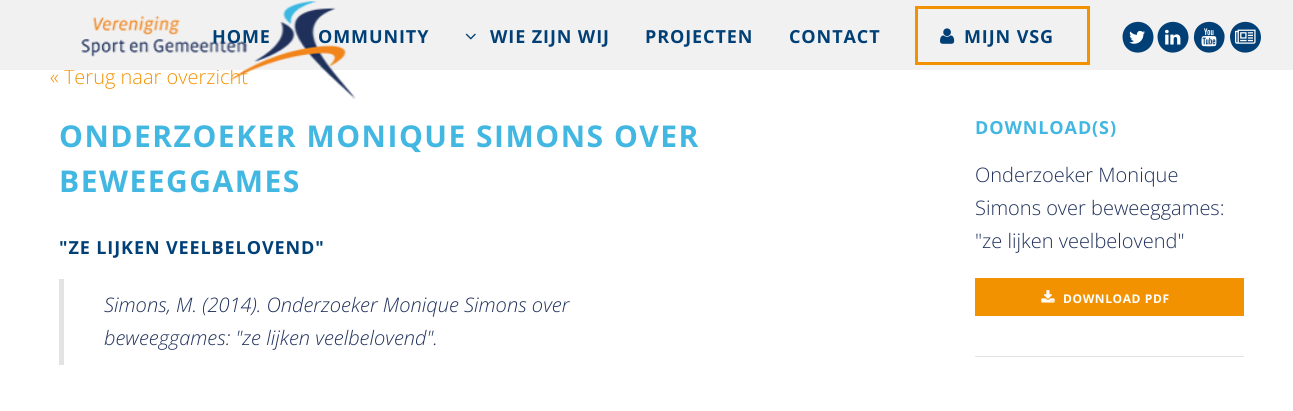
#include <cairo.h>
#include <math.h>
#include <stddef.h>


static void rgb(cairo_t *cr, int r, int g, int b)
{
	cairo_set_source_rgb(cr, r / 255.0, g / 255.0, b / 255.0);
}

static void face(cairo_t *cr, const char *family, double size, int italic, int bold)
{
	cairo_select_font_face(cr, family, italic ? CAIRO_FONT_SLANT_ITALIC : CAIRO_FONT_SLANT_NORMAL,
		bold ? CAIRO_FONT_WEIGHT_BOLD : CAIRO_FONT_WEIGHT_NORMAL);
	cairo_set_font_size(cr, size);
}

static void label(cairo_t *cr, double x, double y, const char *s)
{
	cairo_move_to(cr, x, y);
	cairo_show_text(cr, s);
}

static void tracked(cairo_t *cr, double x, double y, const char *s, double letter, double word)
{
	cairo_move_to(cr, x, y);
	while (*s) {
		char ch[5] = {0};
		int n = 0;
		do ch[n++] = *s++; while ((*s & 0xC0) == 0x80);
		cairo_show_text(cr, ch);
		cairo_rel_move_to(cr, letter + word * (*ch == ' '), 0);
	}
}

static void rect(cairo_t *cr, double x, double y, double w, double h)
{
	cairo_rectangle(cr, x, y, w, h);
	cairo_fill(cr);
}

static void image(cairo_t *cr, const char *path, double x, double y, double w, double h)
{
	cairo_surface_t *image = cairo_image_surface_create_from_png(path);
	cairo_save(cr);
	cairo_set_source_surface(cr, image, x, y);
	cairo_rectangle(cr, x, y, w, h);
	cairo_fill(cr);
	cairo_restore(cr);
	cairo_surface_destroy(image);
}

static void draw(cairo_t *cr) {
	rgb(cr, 255, 255, 255);
	cairo_paint(cr);
	face(cr, "Open Sans Light", 20, 0, 0);
	rgb(cr, 242, 146, 0);
	label(cr, 50, 84, "« Terug naar overzicht");
	rgb(cr, 241, 241, 241);
	rect(cr, 0, 0, 1293, 70);
	image(cr, "image0.png", 81, 1, 275, 98);
	face(cr, "Open Sans", 18, 0, 1);
	rgb(cr, 1, 64, 118);
	tracked(cr, 212, 43, "HOME", 0.9, 0);
	tracked(cr, 318, 43, "OMMUNITY", 0.9, 0);
	image(cr, "image1.png", 465, 33, 11, 7);
	tracked(cr, 490, 43, "WIE ZIJN WIJ", 0.9, 0);
	tracked(cr, 645, 43, "PROJECTEN", 0.9, 0);
	tracked(cr, 789, 43, "CONTACT", 0.9, 0);
	cairo_rectangle(cr, 916.5, 7.5, 172, 56);
	rgb(cr, 242, 146, 0);
	cairo_set_line_width(cr, 3);
	cairo_stroke(cr);
	image(cr, "image2.png", 940, 28, 15, 16);
	rgb(cr, 1, 64, 118);
	tracked(cr, 964, 43, "MIJN VSG", 0.9, 0);
	cairo_new_path(cr);
	cairo_move_to(cr, 1151.5, 29.5);
	cairo_curve_to(cr, 1153, 32, 1153.5, 35, 1153.5, 38);
	cairo_curve_to(cr, 1152.5, 53.5, 1132, 58, 1124.5, 45);
	cairo_curve_to(cr, 1123, 42, 1122.5, 39, 1122.5, 36);
	cairo_curve_to(cr, 1123.5, 21, 1143.5, 16.5, 1151.5, 29.5);
	cairo_close_path(cr);
	cairo_fill(cr);
	image(cr, "image3.png", 1129, 30, 16, 14);
	cairo_new_path(cr);
	cairo_move_to(cr, 1186.5, 29.5);
	cairo_curve_to(cr, 1188, 32, 1188.5, 35, 1188.5, 38);
	cairo_curve_to(cr, 1187.5, 53.5, 1167, 58, 1159.5, 45);
	cairo_curve_to(cr, 1158, 42, 1157.5, 39, 1157.5, 36);
	cairo_curve_to(cr, 1158.5, 21, 1178.5, 16.5, 1186.5, 29.5);
	cairo_close_path(cr);
	cairo_fill(cr);
	image(cr, "image4.png", 1165, 29, 16, 16);
	cairo_new_path(cr);
	cairo_move_to(cr, 1222.5, 29.5);
	cairo_curve_to(cr, 1224, 32, 1225, 35, 1224.5, 38);
	cairo_curve_to(cr, 1223.5, 53.5, 1203.5, 58, 1196, 45);
	cairo_curve_to(cr, 1194.5, 42, 1193.5, 39, 1194, 36);
	cairo_curve_to(cr, 1194.5, 21, 1215, 16.5, 1222.5, 29.5);
	cairo_close_path(cr);
	cairo_fill(cr);
	image(cr, "image5.png", 1201, 28, 16, 19);
	cairo_new_path(cr);
	cairo_move_to(cr, 1259, 29.5);
	cairo_curve_to(cr, 1260.5, 32, 1261, 35, 1261, 38);
	cairo_curve_to(cr, 1260, 53.5, 1239.5, 58, 1232, 45);
	cairo_curve_to(cr, 1230.5, 42, 1230, 39, 1230, 36);
	cairo_curve_to(cr, 1231, 21, 1251, 16.5, 1259, 29.5);
	cairo_close_path(cr);
	cairo_fill(cr);
	image(cr, "image6.png", 1235, 29, 21, 15);
	face(cr, "Open Sans", 30, 0, 1);
	rgb(cr, 66, 183, 226);
	tracked(cr, 59, 147, "ONDERZOEKER MONIQUE SIMONS OVER", 1.5, 0);
	tracked(cr, 59, 192, "BEWEEGGAMES", 1.5, 0);
	face(cr, "Open Sans", 18, 0, 1);
	rgb(cr, 1, 64, 118);
	tracked(cr, 59, 254, "\"ZE LIJKEN VEELBELOVEND\"", 0.9, 0);
	rgb(cr, 227, 227, 227);
	rect(cr, 59, 279, 5, 86);
	face(cr, "Open Sans Light", 20, 1, 0);
	rgb(cr, 32, 49, 92);
	label(cr, 104, 312, "Simons, M. (2014). Onderzoeker Monique Simons over");
	label(cr, 104, 345, "beweeggames: \"ze lijken veelbelovend\".");
	face(cr, "Open Sans", 18, 0, 1);
	rgb(cr, 66, 183, 226);
	tracked(cr, 975, 134, "DOWNLOAD(S)", 0.9, 0);
	face(cr, "Open Sans Light", 20, 0, 0);
	rgb(cr, 32, 49, 92);
	label(cr, 975, 182, "Onderzoeker Monique");
	label(cr, 975, 215, "Simons over beweeggames:");
	label(cr, 975, 248, "\"ze lijken veelbelovend\"");
	rgb(cr, 242, 146, 0);
	rect(cr, 975, 278, 269, 38);
	image(cr, "image7.png", 1041, 290, 14, 13);
	face(cr, "Open Sans", 12, 0, 1);
	rgb(cr, 255, 255, 255);
	tracked(cr, 1063, 303, "DOWNLOAD PDF", 0.6, 0);
	rgb(cr, 227, 227, 227);
	rect(cr, 975, 356, 269, 1);
}

int main(void) {
	cairo_surface_t *surface = cairo_image_surface_create(CAIRO_FORMAT_RGB24, 1293, 411);
	cairo_t *cr = cairo_create(surface);
	cairo_font_options_t *options = cairo_font_options_create();
	cairo_font_options_set_hint_metrics(options, CAIRO_HINT_METRICS_OFF);
	cairo_font_options_set_hint_style(options, CAIRO_HINT_STYLE_NONE);
	cairo_set_font_options(cr, options);
	cairo_set_miter_limit(cr, 4);
	draw(cr);
	cairo_surface_write_to_png(surface, "render.png");
	cairo_font_options_destroy(options);
	cairo_destroy(cr);
	cairo_surface_destroy(surface);
	return 0;
}
